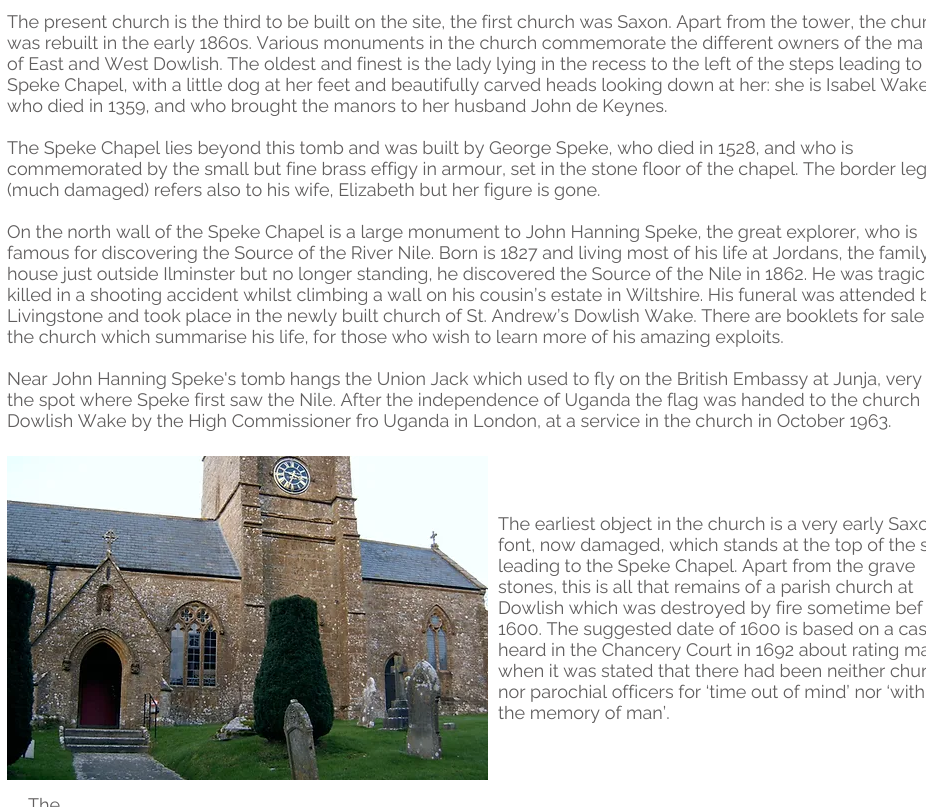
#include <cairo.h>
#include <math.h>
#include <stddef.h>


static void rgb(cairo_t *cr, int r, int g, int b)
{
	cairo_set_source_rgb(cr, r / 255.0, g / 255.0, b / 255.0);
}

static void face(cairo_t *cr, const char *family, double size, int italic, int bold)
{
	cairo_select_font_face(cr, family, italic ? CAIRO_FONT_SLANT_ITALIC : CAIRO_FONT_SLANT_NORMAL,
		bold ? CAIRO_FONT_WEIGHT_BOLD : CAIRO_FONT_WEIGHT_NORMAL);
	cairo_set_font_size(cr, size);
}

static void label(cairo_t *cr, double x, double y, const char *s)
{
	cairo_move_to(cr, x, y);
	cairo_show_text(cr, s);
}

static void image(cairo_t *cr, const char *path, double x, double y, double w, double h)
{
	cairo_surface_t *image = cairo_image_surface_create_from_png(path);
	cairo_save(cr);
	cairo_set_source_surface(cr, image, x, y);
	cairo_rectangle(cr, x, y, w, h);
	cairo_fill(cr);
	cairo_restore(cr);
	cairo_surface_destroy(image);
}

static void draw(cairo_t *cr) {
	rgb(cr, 255, 255, 255);
	cairo_paint(cr);
	face(cr, "Raleway", 18, 0, 0);
	rgb(cr, 96, 94, 94);
	label(cr, 7, 28, "The present church is the third to be built on the site, the first church was Saxon. Apart from the tower, the chur");
	label(cr, 7, 49, "was rebuilt in the early 1860s. Various monuments in the church commemorate the different owners of the ma");
	label(cr, 7, 70, "of East and West Dowlish. The oldest and finest is the lady lying in the recess to the left of the steps leading to");
	label(cr, 7, 91, "Speke Chapel, with a little dog at her feet and beautifully carved heads looking down at her: she is Isabel Wake");
	label(cr, 7, 112, "who died in 1359, and who brought the manors to her husband John de Keynes.");
	label(cr, 7, 154, "The Speke Chapel lies beyond this tomb and was built by George Speke, who died in 1528, and who is");
	label(cr, 7, 175, "commemorated by the small but fine brass effigy in armour, set in the stone floor of the chapel. The border leg");
	label(cr, 7, 196, "(much damaged) refers also to his wife, Elizabeth but her figure is gone.");
	label(cr, 7, 238, "On the north wall of the Speke Chapel is a large monument to John Hanning Speke, the great explorer, who is");
	label(cr, 7, 259, "famous for discovering the Source of the River Nile. Born is 1827 and living most of his life at Jordans, the family");
	label(cr, 7, 280, "house just outside Ilminster but no longer standing, he discovered the Source of the Nile in 1862. He was tragic");
	label(cr, 7, 301, "killed in a shooting accident whilst climbing a wall on his cousin’s estate in Wiltshire. His funeral was attended b");
	label(cr, 7, 322, "Livingstone and took place in the newly built church of St. Andrew’s Dowlish Wake. There are booklets for sale");
	label(cr, 7, 343, "the church which summarise his life, for those who wish to learn more of his amazing exploits.");
	label(cr, 7, 385, "Near John Hanning Speke's tomb hangs the Union Jack which used to fly on the British Embassy at Junja, very");
	label(cr, 7, 406, "the spot where Speke first saw the Nile. After the independence of Uganda the flag was handed to the church");
	label(cr, 7, 427, "Dowlish Wake by the High Commissioner fro Uganda in London, at a service in the church in October 1963.");
	image(cr, "image0.png", 7, 456, 481, 324);
	label(cr, 498, 530, "The earliest object in the church is a very early Saxo");
	label(cr, 498, 551, "font, now damaged, which stands at the top of the s");
	label(cr, 498, 572, "leading to the Speke Chapel. Apart from the grave");
	label(cr, 498, 593, "stones, this is all that remains of a parish church at");
	label(cr, 498, 614, "Dowlish which was destroyed by fire sometime bef");
	label(cr, 498, 635, "1600. The suggested date of 1600 is based on a cas");
	label(cr, 498, 656, "heard in the Chancery Court in 1692 about rating ma");
	label(cr, 498, 677, "when it was stated that there had been neither chur");
	label(cr, 498, 698, "nor parochial officers for ‘time out of mind’ nor ‘with");
	label(cr, 498, 719, "the memory of man’.");
	label(cr, 28, 811, "The");
}

int main(void) {
	cairo_surface_t *surface = cairo_image_surface_create(CAIRO_FORMAT_RGB24, 926, 807);
	cairo_t *cr = cairo_create(surface);
	cairo_font_options_t *options = cairo_font_options_create();
	cairo_font_options_set_hint_metrics(options, CAIRO_HINT_METRICS_OFF);
	cairo_font_options_set_hint_style(options, CAIRO_HINT_STYLE_NONE);
	cairo_set_font_options(cr, options);
	cairo_set_miter_limit(cr, 4);
	draw(cr);
	cairo_surface_write_to_png(surface, "render.png");
	cairo_font_options_destroy(options);
	cairo_destroy(cr);
	cairo_surface_destroy(surface);
	return 0;
}
